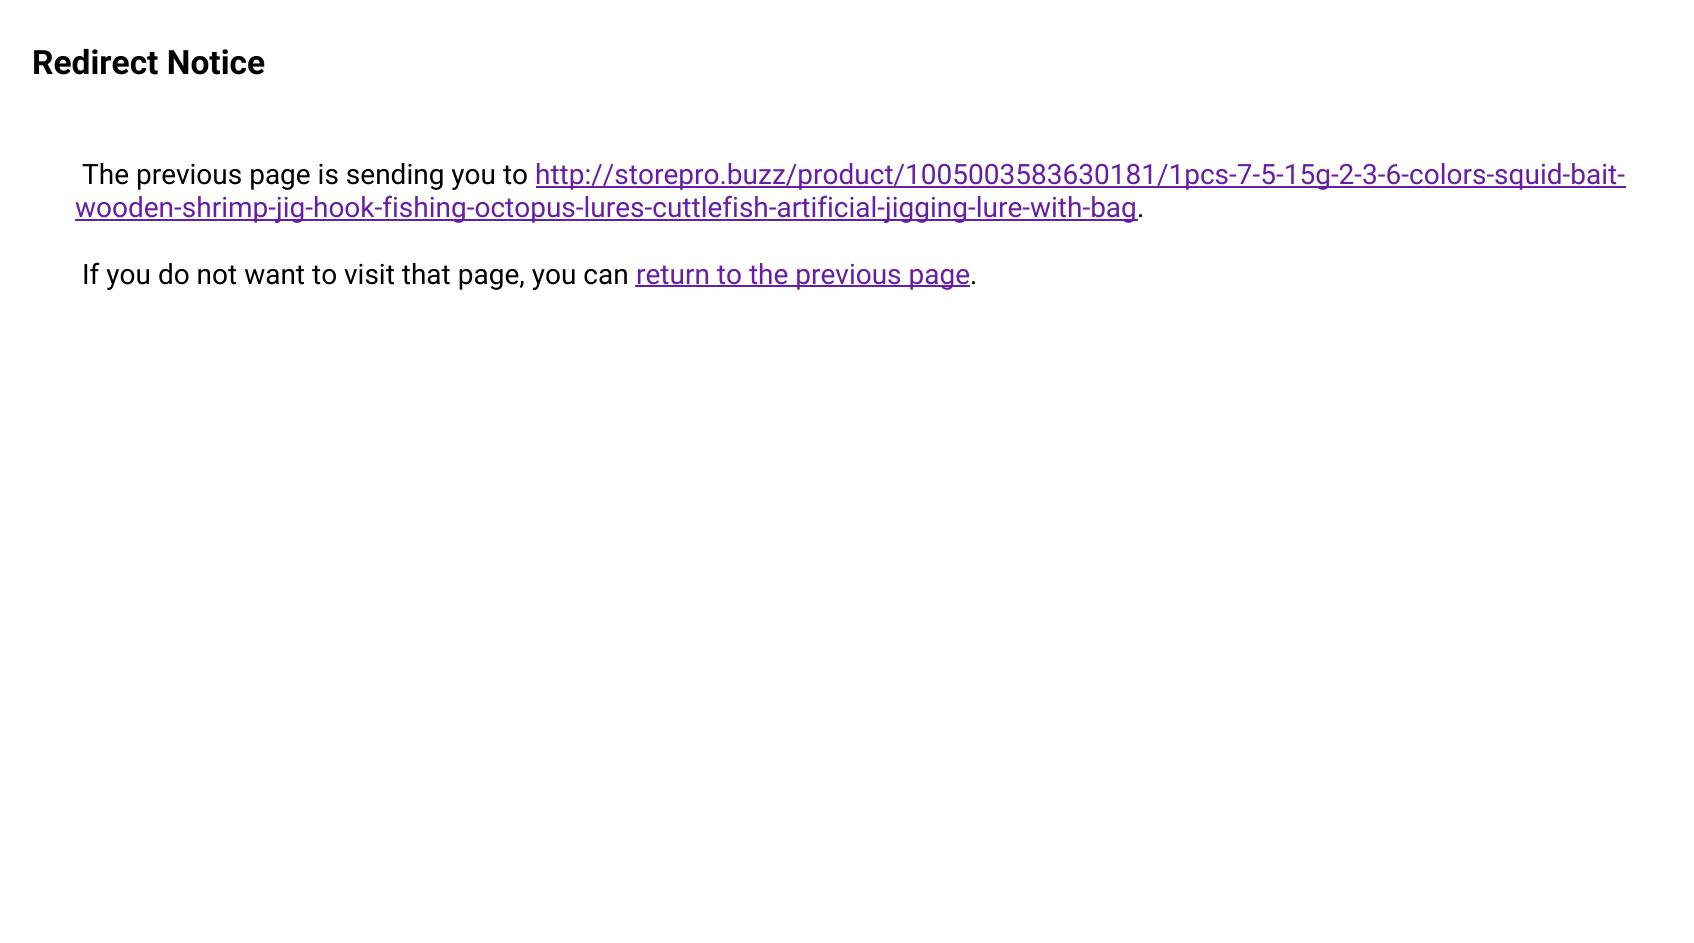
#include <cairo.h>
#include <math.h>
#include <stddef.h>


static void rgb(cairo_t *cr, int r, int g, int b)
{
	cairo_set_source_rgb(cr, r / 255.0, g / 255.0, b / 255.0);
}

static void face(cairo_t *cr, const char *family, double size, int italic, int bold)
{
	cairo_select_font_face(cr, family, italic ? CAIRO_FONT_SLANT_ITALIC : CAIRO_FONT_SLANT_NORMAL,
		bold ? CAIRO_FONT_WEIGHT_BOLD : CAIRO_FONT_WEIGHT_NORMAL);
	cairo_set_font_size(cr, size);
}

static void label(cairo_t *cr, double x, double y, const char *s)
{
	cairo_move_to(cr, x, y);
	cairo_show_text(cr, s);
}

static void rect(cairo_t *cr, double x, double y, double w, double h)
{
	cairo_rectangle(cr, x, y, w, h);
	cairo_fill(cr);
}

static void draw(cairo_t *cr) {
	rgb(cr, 255, 255, 255);
	cairo_paint(cr);
	face(cr, "Roboto", 33.5, 0, 1);
	rgb(cr, 0, 0, 0);
	label(cr, 32, 74, "Redirect Notice");
	face(cr, "Roboto", 28, 0, 0);
	label(cr, 82, 184, "The previous page is sending you to");
	rgb(cr, 104, 29, 168);
	rect(cr, 536, 186, 1090, 2);
	label(cr, 535, 184, "http://storepro.buzz/product/1005003583630181/1pcs-7-5-15g-2-3-6-colors-squid-bait-");
	rect(cr, 75, 219, 1063, 2);
	label(cr, 75, 217, "wooden-shrimp-jig-hook-fishing-octopus-lures-cuttlefish-artificial-jigging-lure-with-bag");
	rgb(cr, 0, 0, 0);
	label(cr, 1137, 217, ".");
	label(cr, 82, 284, "If you do not want to visit that page, you can");
	rgb(cr, 104, 29, 168);
	rect(cr, 635, 285, 335, 2);
	label(cr, 636, 284, "return to the previous page");
	rgb(cr, 0, 0, 0);
	label(cr, 970, 284, ".");
}

int main(void) {
	cairo_surface_t *surface = cairo_image_surface_create(CAIRO_FORMAT_RGB24, 1694, 943);
	cairo_t *cr = cairo_create(surface);
	cairo_font_options_t *options = cairo_font_options_create();
	cairo_font_options_set_hint_metrics(options, CAIRO_HINT_METRICS_OFF);
	cairo_font_options_set_hint_style(options, CAIRO_HINT_STYLE_NONE);
	cairo_set_font_options(cr, options);
	cairo_set_miter_limit(cr, 4);
	draw(cr);
	cairo_surface_write_to_png(surface, "render.png");
	cairo_font_options_destroy(options);
	cairo_destroy(cr);
	cairo_surface_destroy(surface);
	return 0;
}
